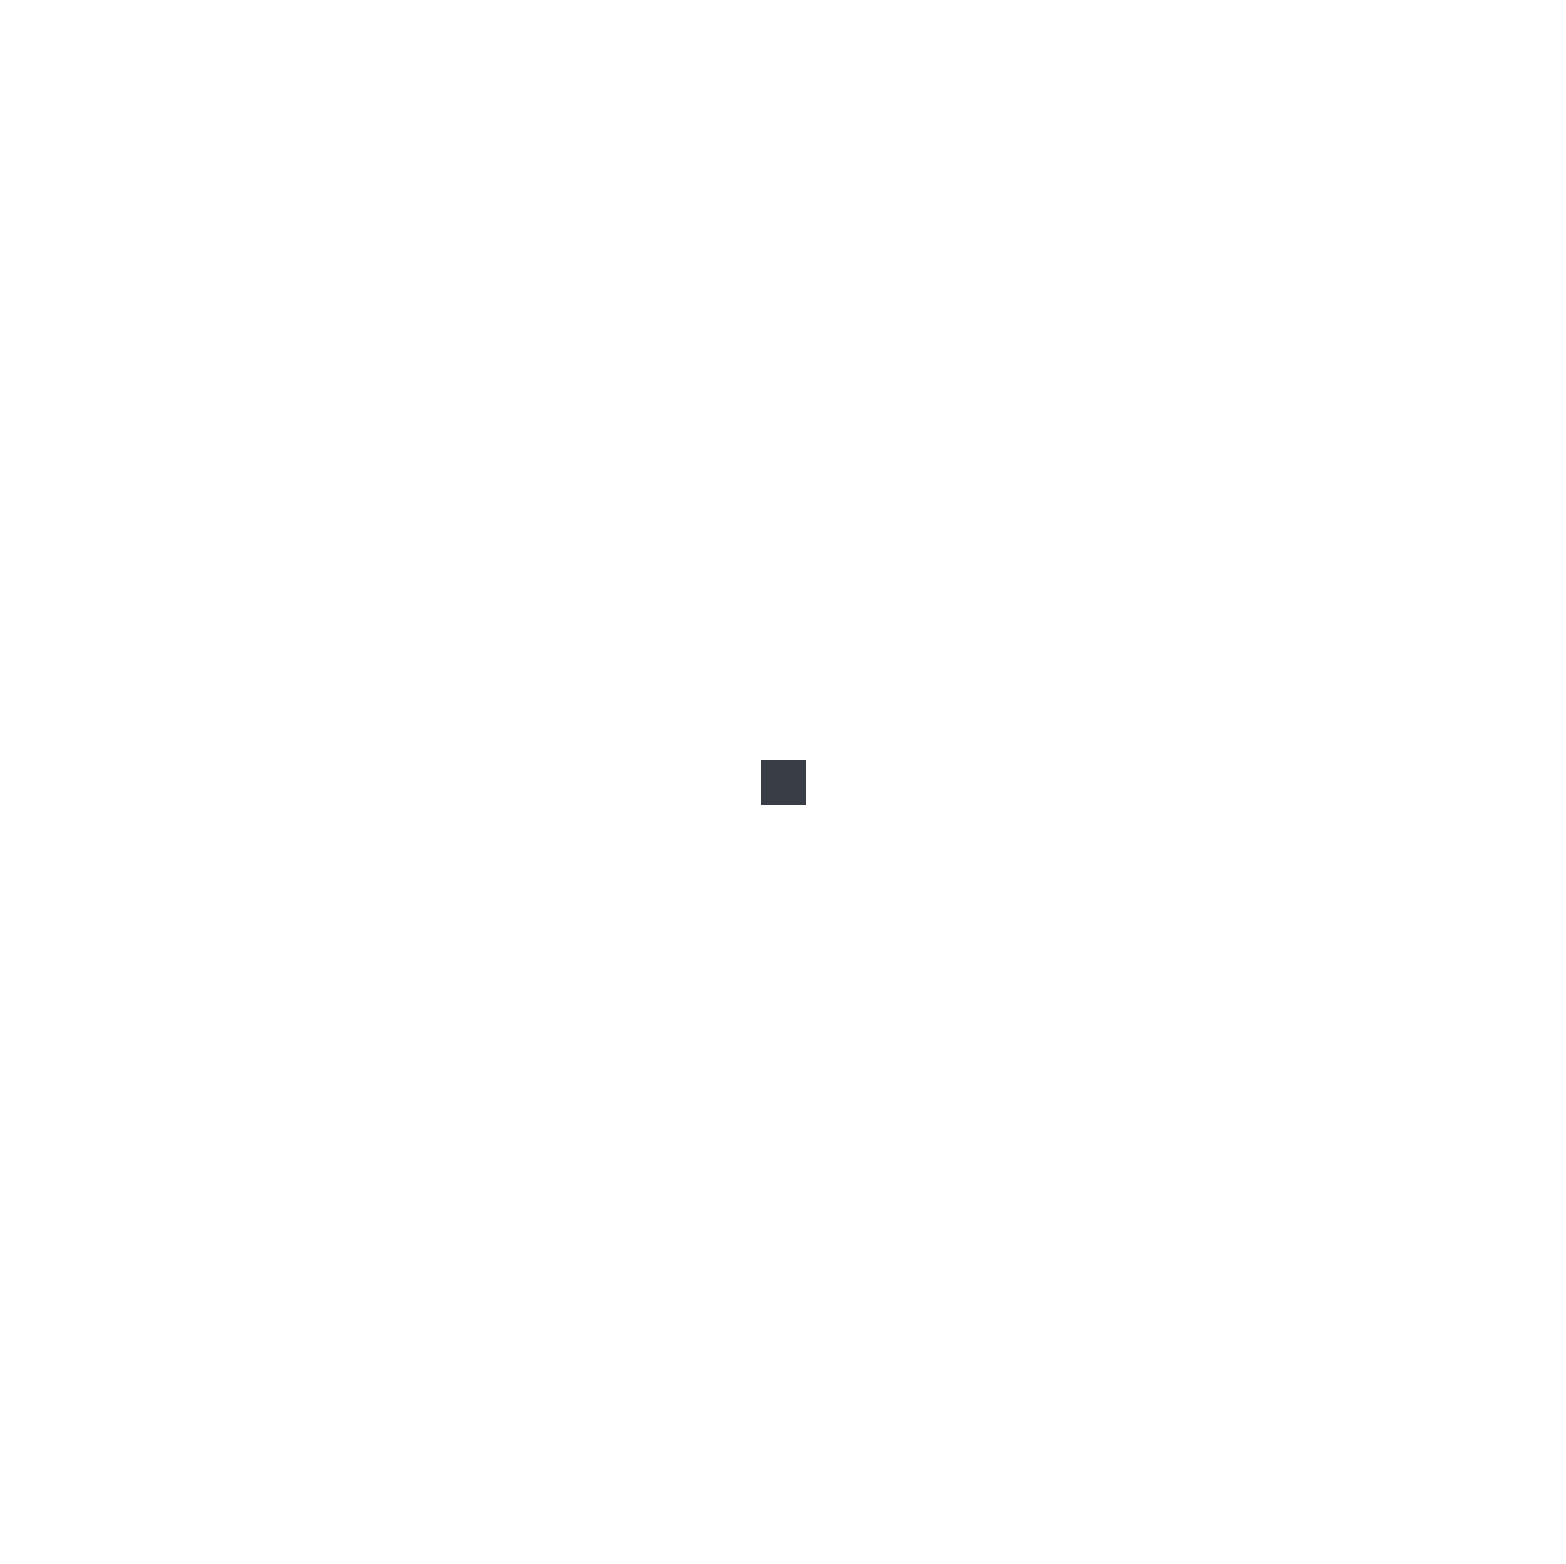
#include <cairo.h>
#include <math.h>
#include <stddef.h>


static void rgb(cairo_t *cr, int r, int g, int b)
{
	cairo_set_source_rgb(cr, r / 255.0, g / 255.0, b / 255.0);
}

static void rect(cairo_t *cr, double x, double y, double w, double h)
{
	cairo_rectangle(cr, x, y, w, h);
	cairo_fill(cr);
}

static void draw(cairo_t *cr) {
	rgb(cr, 255, 255, 255);
	cairo_paint(cr);
	rgb(cr, 57, 62, 70);
	rect(cr, 761, 760, 45, 45);
}

int main(void) {
	cairo_surface_t *surface = cairo_image_surface_create(CAIRO_FORMAT_RGB24, 1566, 1564);
	cairo_t *cr = cairo_create(surface);
	cairo_font_options_t *options = cairo_font_options_create();
	cairo_font_options_set_hint_metrics(options, CAIRO_HINT_METRICS_OFF);
	cairo_font_options_set_hint_style(options, CAIRO_HINT_STYLE_NONE);
	cairo_set_font_options(cr, options);
	cairo_set_miter_limit(cr, 4);
	draw(cr);
	cairo_surface_write_to_png(surface, "render.png");
	cairo_font_options_destroy(options);
	cairo_destroy(cr);
	cairo_surface_destroy(surface);
	return 0;
}
